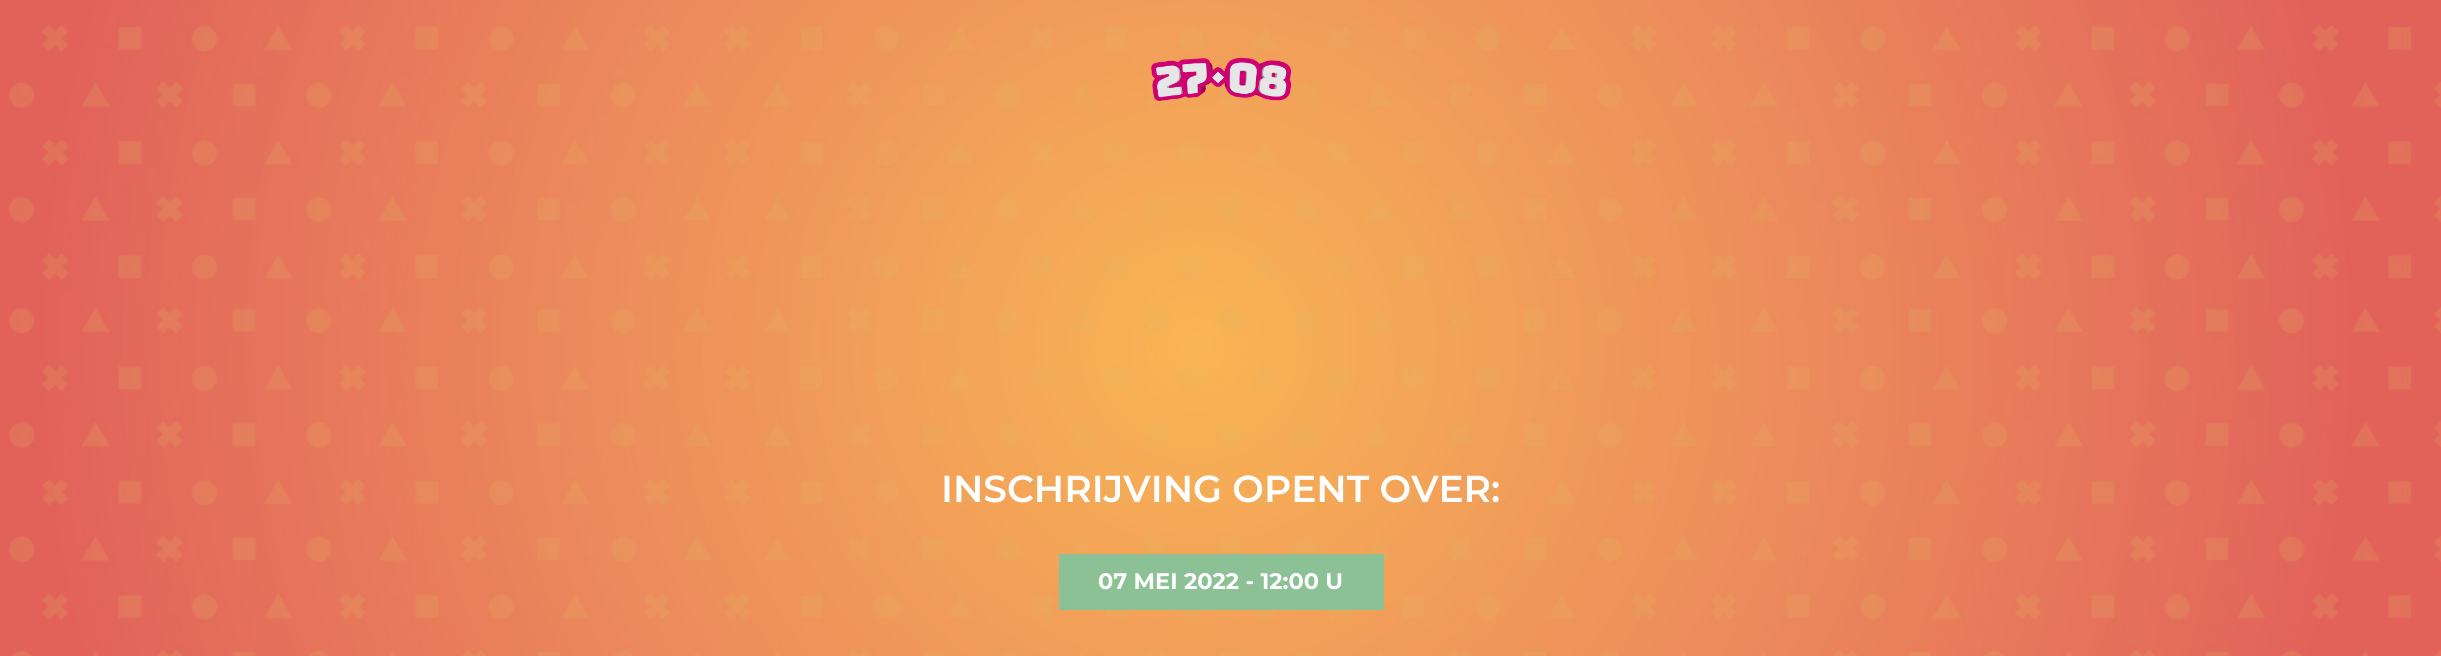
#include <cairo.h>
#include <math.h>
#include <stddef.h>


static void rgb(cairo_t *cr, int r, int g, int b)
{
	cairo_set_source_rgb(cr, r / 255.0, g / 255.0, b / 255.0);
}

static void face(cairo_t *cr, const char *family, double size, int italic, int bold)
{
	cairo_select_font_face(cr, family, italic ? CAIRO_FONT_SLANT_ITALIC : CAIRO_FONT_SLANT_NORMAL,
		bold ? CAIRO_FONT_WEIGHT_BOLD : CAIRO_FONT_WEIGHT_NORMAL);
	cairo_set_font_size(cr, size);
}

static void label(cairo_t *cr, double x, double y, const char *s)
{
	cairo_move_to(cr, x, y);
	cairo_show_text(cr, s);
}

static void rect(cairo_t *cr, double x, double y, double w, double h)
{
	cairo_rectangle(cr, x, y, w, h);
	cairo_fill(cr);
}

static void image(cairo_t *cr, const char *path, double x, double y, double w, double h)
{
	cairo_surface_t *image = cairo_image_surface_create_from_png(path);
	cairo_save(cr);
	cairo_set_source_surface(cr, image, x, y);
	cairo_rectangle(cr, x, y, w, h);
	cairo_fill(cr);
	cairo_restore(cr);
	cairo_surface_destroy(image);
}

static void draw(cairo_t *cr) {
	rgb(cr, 255, 255, 255);
	cairo_paint(cr);
	image(cr, "image0.png", 0, 0, 2441, 656);
	image(cr, "image1.png", 1151, 58, 141, 43);
	face(cr, "Montserrat SemiBold", 37.5, 0, 0);
	rgb(cr, 255, 255, 255);
	label(cr, 941, 502, "INSCHRIJVING OPENT OVER:");
	rgb(cr, 140, 192, 149);
	rect(cr, 1059, 554, 325, 56);
	face(cr, "Montserrat", 22.5, 0, 1);
	rgb(cr, 255, 255, 255);
	label(cr, 1098, 589, "07 MEI 2022 - 12:00 U");
}

int main(void) {
	cairo_surface_t *surface = cairo_image_surface_create(CAIRO_FORMAT_RGB24, 2441, 656);
	cairo_t *cr = cairo_create(surface);
	cairo_font_options_t *options = cairo_font_options_create();
	cairo_font_options_set_hint_metrics(options, CAIRO_HINT_METRICS_OFF);
	cairo_font_options_set_hint_style(options, CAIRO_HINT_STYLE_NONE);
	cairo_set_font_options(cr, options);
	cairo_set_miter_limit(cr, 4);
	draw(cr);
	cairo_surface_write_to_png(surface, "render.png");
	cairo_font_options_destroy(options);
	cairo_destroy(cr);
	cairo_surface_destroy(surface);
	return 0;
}
